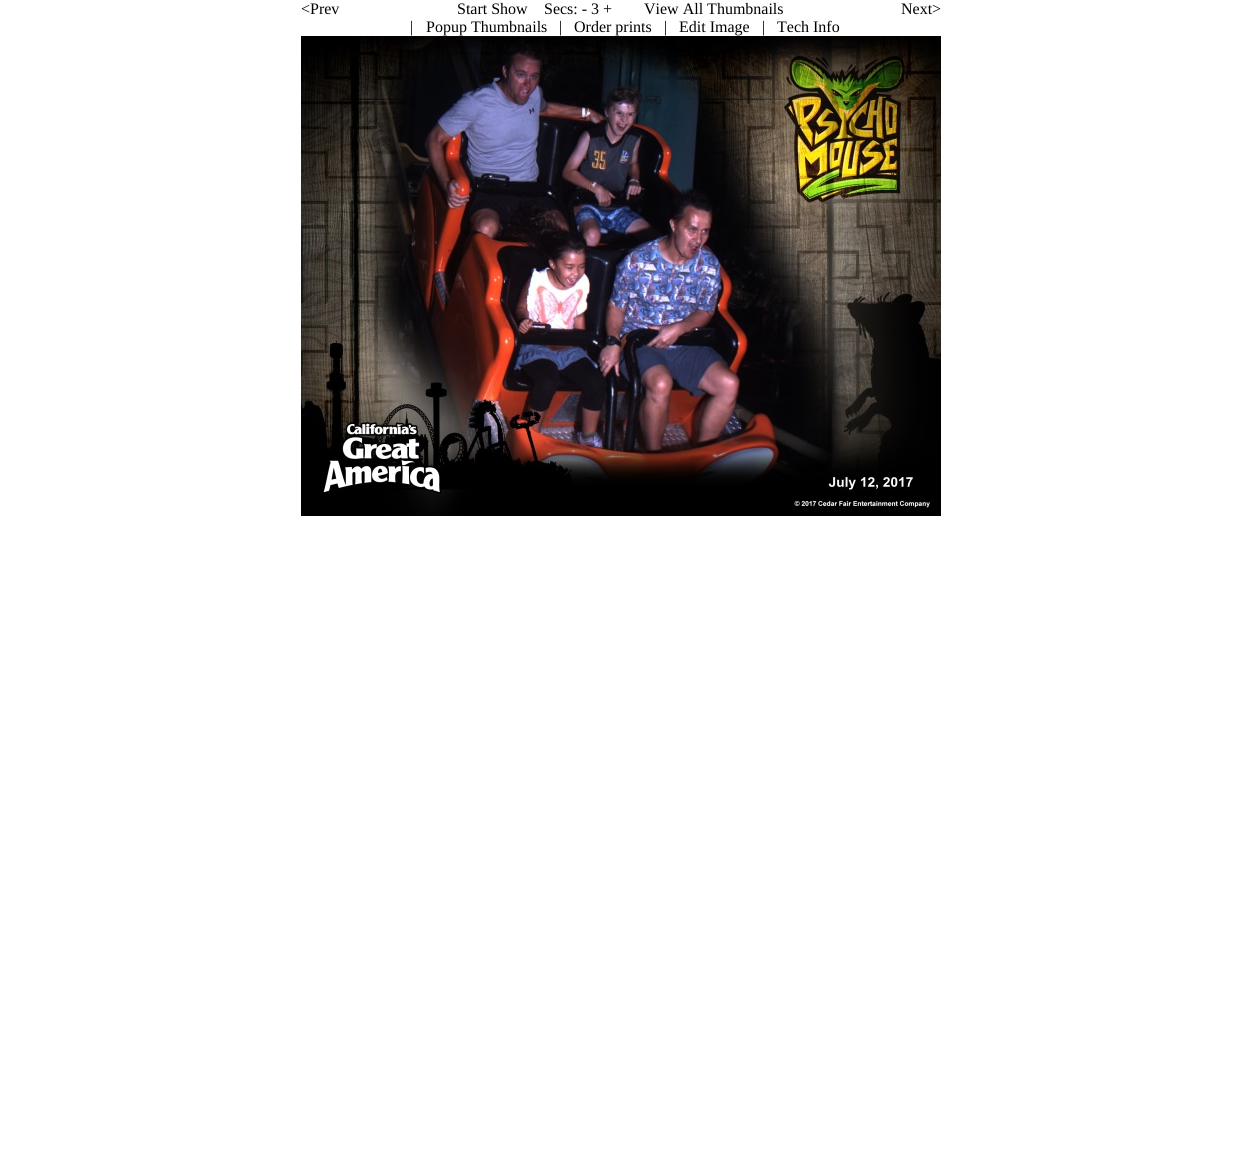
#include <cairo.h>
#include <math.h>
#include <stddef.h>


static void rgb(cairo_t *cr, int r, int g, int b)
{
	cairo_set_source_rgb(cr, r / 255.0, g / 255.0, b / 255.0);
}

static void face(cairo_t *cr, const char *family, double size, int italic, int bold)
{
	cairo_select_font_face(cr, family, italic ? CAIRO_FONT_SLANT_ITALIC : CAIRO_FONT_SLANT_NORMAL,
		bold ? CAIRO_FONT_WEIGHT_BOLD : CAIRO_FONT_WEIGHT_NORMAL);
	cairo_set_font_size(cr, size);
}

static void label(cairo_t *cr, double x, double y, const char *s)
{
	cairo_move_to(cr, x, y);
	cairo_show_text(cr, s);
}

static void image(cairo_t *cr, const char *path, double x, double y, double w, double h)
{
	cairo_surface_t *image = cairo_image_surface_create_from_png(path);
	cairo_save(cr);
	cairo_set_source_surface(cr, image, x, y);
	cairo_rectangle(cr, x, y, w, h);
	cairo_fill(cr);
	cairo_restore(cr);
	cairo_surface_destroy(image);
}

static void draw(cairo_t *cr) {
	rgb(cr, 255, 255, 255);
	cairo_paint(cr);
	face(cr, "Liberation Serif", 16, 0, 0);
	rgb(cr, 0, 0, 0);
	label(cr, 301, 14, "<Prev");
	label(cr, 457, 14, "Start Show");
	label(cr, 544, 14, "Secs: - 3 +");
	label(cr, 644, 14, "View All Thumbnails");
	label(cr, 901, 14, "Next>");
	label(cr, 410, 32, "|");
	label(cr, 426, 32, "Popup Thumbnails");
	label(cr, 559, 32, "|");
	label(cr, 574, 32, "Order prints");
	label(cr, 664, 32, "|");
	label(cr, 679, 32, "Edit Image");
	label(cr, 762, 32, "|");
	label(cr, 777, 32, "Tech Info");
	image(cr, "image0.png", 301, 36, 640, 480);
}

int main(void) {
	cairo_surface_t *surface = cairo_image_surface_create(CAIRO_FORMAT_RGB24, 1242, 1158);
	cairo_t *cr = cairo_create(surface);
	cairo_font_options_t *options = cairo_font_options_create();
	cairo_font_options_set_hint_metrics(options, CAIRO_HINT_METRICS_OFF);
	cairo_font_options_set_hint_style(options, CAIRO_HINT_STYLE_NONE);
	cairo_set_font_options(cr, options);
	cairo_set_miter_limit(cr, 4);
	draw(cr);
	cairo_surface_write_to_png(surface, "render.png");
	cairo_font_options_destroy(options);
	cairo_destroy(cr);
	cairo_surface_destroy(surface);
	return 0;
}
